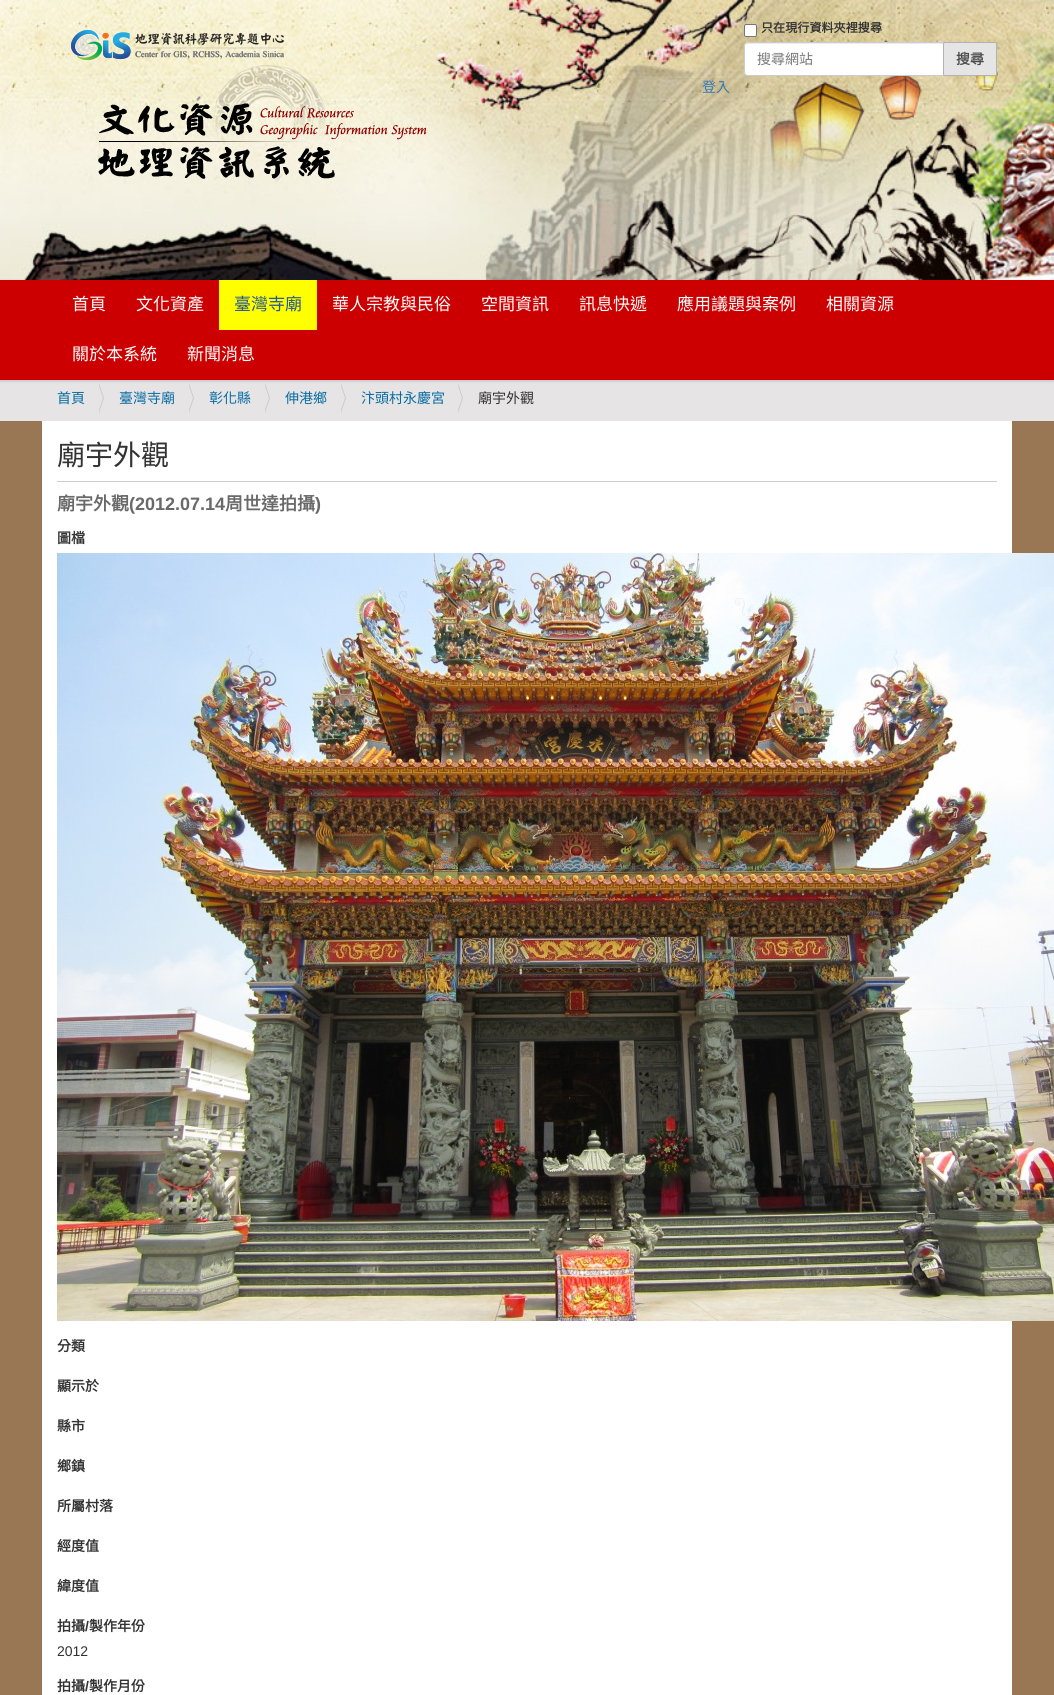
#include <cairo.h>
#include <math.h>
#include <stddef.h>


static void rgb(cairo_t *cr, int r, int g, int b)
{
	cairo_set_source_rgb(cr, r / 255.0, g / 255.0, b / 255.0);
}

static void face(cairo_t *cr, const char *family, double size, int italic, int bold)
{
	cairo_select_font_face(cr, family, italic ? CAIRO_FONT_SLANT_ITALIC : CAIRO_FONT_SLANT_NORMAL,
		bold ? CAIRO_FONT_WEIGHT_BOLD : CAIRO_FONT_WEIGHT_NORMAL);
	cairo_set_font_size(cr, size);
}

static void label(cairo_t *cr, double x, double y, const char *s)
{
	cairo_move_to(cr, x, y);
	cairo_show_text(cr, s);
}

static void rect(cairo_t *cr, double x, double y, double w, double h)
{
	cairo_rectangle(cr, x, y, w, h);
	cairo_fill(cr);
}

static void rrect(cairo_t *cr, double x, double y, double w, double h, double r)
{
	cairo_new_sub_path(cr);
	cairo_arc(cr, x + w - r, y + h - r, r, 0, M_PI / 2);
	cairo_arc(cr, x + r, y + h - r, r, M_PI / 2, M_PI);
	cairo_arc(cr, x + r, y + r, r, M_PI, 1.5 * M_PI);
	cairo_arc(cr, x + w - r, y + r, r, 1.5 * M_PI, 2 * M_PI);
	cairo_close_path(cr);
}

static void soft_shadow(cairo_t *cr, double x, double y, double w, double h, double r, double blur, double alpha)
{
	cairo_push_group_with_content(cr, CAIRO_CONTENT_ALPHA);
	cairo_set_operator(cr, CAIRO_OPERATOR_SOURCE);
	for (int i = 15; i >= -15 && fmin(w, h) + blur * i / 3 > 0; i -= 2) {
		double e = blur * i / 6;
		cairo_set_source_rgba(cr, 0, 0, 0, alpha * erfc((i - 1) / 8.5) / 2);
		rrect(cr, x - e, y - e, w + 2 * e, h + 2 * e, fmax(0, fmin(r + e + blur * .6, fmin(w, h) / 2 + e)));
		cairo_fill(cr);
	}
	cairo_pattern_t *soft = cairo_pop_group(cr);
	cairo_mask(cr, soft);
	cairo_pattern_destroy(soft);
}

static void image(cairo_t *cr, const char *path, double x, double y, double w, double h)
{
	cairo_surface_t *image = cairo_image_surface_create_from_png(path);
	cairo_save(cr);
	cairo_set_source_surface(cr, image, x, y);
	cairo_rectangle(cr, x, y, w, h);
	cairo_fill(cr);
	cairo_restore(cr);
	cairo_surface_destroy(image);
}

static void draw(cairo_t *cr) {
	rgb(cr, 153, 119, 85);
	cairo_paint(cr);
	image(cr, "image0.png", 0, 0, 1054, 280);
	image(cr, "image1.png", 71, 30, 213, 30);
	rgb(cr, 255, 255, 255);
	rrect(cr, 744.5, 24.5, 12, 12, 1.5);
	cairo_fill_preserve(cr);
	rgb(cr, 118, 118, 118);
	cairo_set_line_width(cr, 1);
	cairo_stroke(cr);
	face(cr, "Noto Sans CJK TC", 12.1, 0, 1);
	rgb(cr, 51, 51, 51);
	label(cr, 761, 32, "只在現行資料夾裡搜尋");
	rgb(cr, 255, 255, 255);
	cairo_new_path(cr);
	cairo_move_to(cr, 748, 42);
	cairo_line_to(cr, 944, 42);
	cairo_line_to(cr, 944, 76);
	cairo_line_to(cr, 748, 76);
	cairo_curve_to(cr, 746, 76, 744, 74, 744, 72);
	cairo_line_to(cr, 744, 46);
	cairo_curve_to(cr, 744, 44, 746, 42, 748, 42);
	cairo_close_path(cr);
	cairo_fill(cr);
	rgb(cr, 236, 236, 236);
	cairo_new_path(cr);
	cairo_move_to(cr, 748, 44);
	cairo_line_to(cr, 943, 44);
	cairo_line_to(cr, 943, 43);
	cairo_line_to(cr, 748, 43);
	cairo_curve_to(cr, 746, 43, 745, 45, 745, 47);
	cairo_curve_to(cr, 745, 45, 746, 44, 748, 44);
	cairo_close_path(cr);
	cairo_fill(cr);
	cairo_new_path(cr);
	cairo_move_to(cr, 748, 42.5);
	cairo_line_to(cr, 943.5, 42.5);
	cairo_line_to(cr, 943.5, 75.5);
	cairo_line_to(cr, 748, 75.5);
	cairo_curve_to(cr, 746, 75.5, 744.5, 74, 744.5, 72);
	cairo_line_to(cr, 744.5, 46);
	cairo_curve_to(cr, 744.5, 44, 746, 42.5, 748, 42.5);
	cairo_close_path(cr);
	rgb(cr, 204, 204, 204);
	cairo_stroke(cr);
	face(cr, "Noto Sans CJK TC", 14, 0, 0);
	rgb(cr, 119, 119, 119);
	label(cr, 757, 64, "搜尋網站");
	rgb(cr, 229, 229, 229);
	rrect(cr, 943.5, 42.5, 53, 33, 1.5);
	cairo_fill_preserve(cr);
	rgb(cr, 178, 178, 178);
	cairo_stroke(cr);
	face(cr, "Noto Sans CJK TC", 14, 0, 1);
	rgb(cr, 77, 77, 77);
	label(cr, 956, 64, "搜尋");
	image(cr, "image2.png", 98, 65, 329, 114);
	face(cr, "Noto Sans CJK TC", 14, 0, 0);
	rgb(cr, 51, 122, 183);
	label(cr, 702, 92, "登入");
	rgb(cr, 230, 228, 228);
	rect(cr, 0, 380, 1054, 41);
	rgb(cr, 0, 0, 0);
	soft_shadow(cr, 0, 281, 1054, 100, 0, 1.5, 0.17);
	rgb(cr, 204, 0, 0);
	rect(cr, 0, 280, 1054, 100);
	face(cr, "Noto Sans CJK TC", 17, 0, 0);
	rgb(cr, 255, 255, 255);
	label(cr, 72, 310, "首頁");
	label(cr, 136, 310, "文化資產");
	rgb(cr, 255, 255, 0);
	rect(cr, 219, 280, 98, 50);
	rgb(cr, 34, 85, 153);
	label(cr, 234, 310, "臺灣寺廟");
	rgb(cr, 255, 255, 255);
	label(cr, 332, 310, "華人宗教與民俗");
	label(cr, 481, 310, "空間資訊");
	label(cr, 579, 310, "訊息快遞");
	label(cr, 677, 310, "應用議題與案例");
	label(cr, 826, 310, "相關資源");
	label(cr, 72, 360, "關於本系統");
	label(cr, 187, 360, "新聞消息");
	face(cr, "Noto Sans CJK TC", 14, 0, 0);
	rgb(cr, 8, 108, 163);
	label(cr, 57, 403, "首頁");
	rgb(cr, 204, 204, 204);
	cairo_new_path(cr);
	cairo_move_to(cr, 99, 413);
	cairo_line_to(cr, 99, 383);
	cairo_line_to(cr, 104, 398);
	cairo_close_path(cr);
	cairo_fill(cr);
	rgb(cr, 230, 228, 228);
	cairo_new_path(cr);
	cairo_move_to(cr, 98, 413);
	cairo_line_to(cr, 98, 383);
	cairo_line_to(cr, 103, 398);
	cairo_close_path(cr);
	cairo_fill(cr);
	rgb(cr, 8, 108, 163);
	label(cr, 119, 403, "臺灣寺廟");
	rgb(cr, 204, 204, 204);
	cairo_new_path(cr);
	cairo_move_to(cr, 189, 413);
	cairo_line_to(cr, 189, 383);
	cairo_line_to(cr, 194, 398);
	cairo_close_path(cr);
	cairo_fill(cr);
	rgb(cr, 230, 228, 228);
	cairo_new_path(cr);
	cairo_move_to(cr, 188, 413);
	cairo_line_to(cr, 188, 383);
	cairo_line_to(cr, 193, 398);
	cairo_close_path(cr);
	cairo_fill(cr);
	rgb(cr, 8, 108, 163);
	label(cr, 209, 403, "彰化縣");
	rgb(cr, 204, 204, 204);
	cairo_new_path(cr);
	cairo_move_to(cr, 265, 413);
	cairo_line_to(cr, 265, 383);
	cairo_line_to(cr, 270, 398);
	cairo_close_path(cr);
	cairo_fill(cr);
	rgb(cr, 230, 228, 228);
	cairo_new_path(cr);
	cairo_move_to(cr, 264, 413);
	cairo_line_to(cr, 264, 383);
	cairo_line_to(cr, 269, 398);
	cairo_close_path(cr);
	cairo_fill(cr);
	rgb(cr, 8, 108, 163);
	label(cr, 285, 403, "伸港鄉");
	rgb(cr, 204, 204, 204);
	cairo_new_path(cr);
	cairo_move_to(cr, 341, 413);
	cairo_line_to(cr, 341, 383);
	cairo_line_to(cr, 346, 398);
	cairo_close_path(cr);
	cairo_fill(cr);
	rgb(cr, 230, 228, 228);
	cairo_new_path(cr);
	cairo_move_to(cr, 340, 413);
	cairo_line_to(cr, 340, 383);
	cairo_line_to(cr, 345, 398);
	cairo_close_path(cr);
	cairo_fill(cr);
	rgb(cr, 8, 108, 163);
	label(cr, 361, 403, "汴頭村永慶宮");
	rgb(cr, 204, 204, 204);
	cairo_new_path(cr);
	cairo_move_to(cr, 458, 413);
	cairo_line_to(cr, 458, 383);
	cairo_line_to(cr, 463, 398);
	cairo_close_path(cr);
	cairo_fill(cr);
	rgb(cr, 230, 228, 228);
	cairo_new_path(cr);
	cairo_move_to(cr, 457, 413);
	cairo_line_to(cr, 457, 383);
	cairo_line_to(cr, 462, 398);
	cairo_close_path(cr);
	cairo_fill(cr);
	rgb(cr, 51, 51, 51);
	label(cr, 478, 403, "廟宇外觀");
	rgb(cr, 255, 255, 255);
	rect(cr, 42, 421, 970, 1274);
	rgb(cr, 204, 204, 204);
	rect(cr, 57, 481, 940, 1);
	face(cr, "Noto Sans CJK TC", 28, 0, 0);
	rgb(cr, 51, 51, 51);
	label(cr, 57, 465, "廟宇外觀");
	face(cr, "Noto Sans CJK TC", 18, 0, 1);
	rgb(cr, 105, 105, 105);
	label(cr, 57, 510, "廟宇外觀");
	face(cr, "Liberation Sans", 18, 0, 1);
	label(cr, 129, 510, "(2012.07.14");
	face(cr, "Noto Sans CJK TC", 18, 0, 1);
	label(cr, 225, 510, "周世達拍攝");
	face(cr, "Liberation Sans", 18, 0, 1);
	label(cr, 315, 510, ")");
	face(cr, "Noto Sans CJK TC", 14, 0, 1);
	rgb(cr, 51, 51, 51);
	label(cr, 57, 543, "圖檔");
	image(cr, "image3.png", 57, 553, 997, 768);
	label(cr, 57, 1351, "分類");
	label(cr, 57, 1391, "顯示於");
	label(cr, 57, 1431, "縣市");
	label(cr, 57, 1471, "鄉鎮");
	label(cr, 57, 1511, "所屬村落");
	label(cr, 57, 1551, "經度值");
	label(cr, 57, 1591, "緯度值");
	label(cr, 57, 1631, "拍攝");
	face(cr, "Liberation Sans", 14, 0, 1);
	label(cr, 85, 1631, "/");
	face(cr, "Noto Sans CJK TC", 14, 0, 1);
	label(cr, 89, 1631, "製作年份");
	face(cr, "Liberation Sans", 14, 0, 0);
	label(cr, 57, 1656, "2012");
	face(cr, "Noto Sans CJK TC", 14, 0, 1);
	label(cr, 57, 1691, "拍攝");
	face(cr, "Liberation Sans", 14, 0, 1);
	label(cr, 85, 1691, "/");
	face(cr, "Noto Sans CJK TC", 14, 0, 1);
	label(cr, 89, 1691, "製作月份");
}

int main(void) {
	cairo_surface_t *surface = cairo_image_surface_create(CAIRO_FORMAT_RGB24, 1054, 1695);
	cairo_t *cr = cairo_create(surface);
	cairo_font_options_t *options = cairo_font_options_create();
	cairo_font_options_set_hint_metrics(options, CAIRO_HINT_METRICS_OFF);
	cairo_font_options_set_hint_style(options, CAIRO_HINT_STYLE_NONE);
	cairo_set_font_options(cr, options);
	cairo_set_miter_limit(cr, 4);
	draw(cr);
	cairo_surface_write_to_png(surface, "render.png");
	cairo_font_options_destroy(options);
	cairo_destroy(cr);
	cairo_surface_destroy(surface);
	return 0;
}
